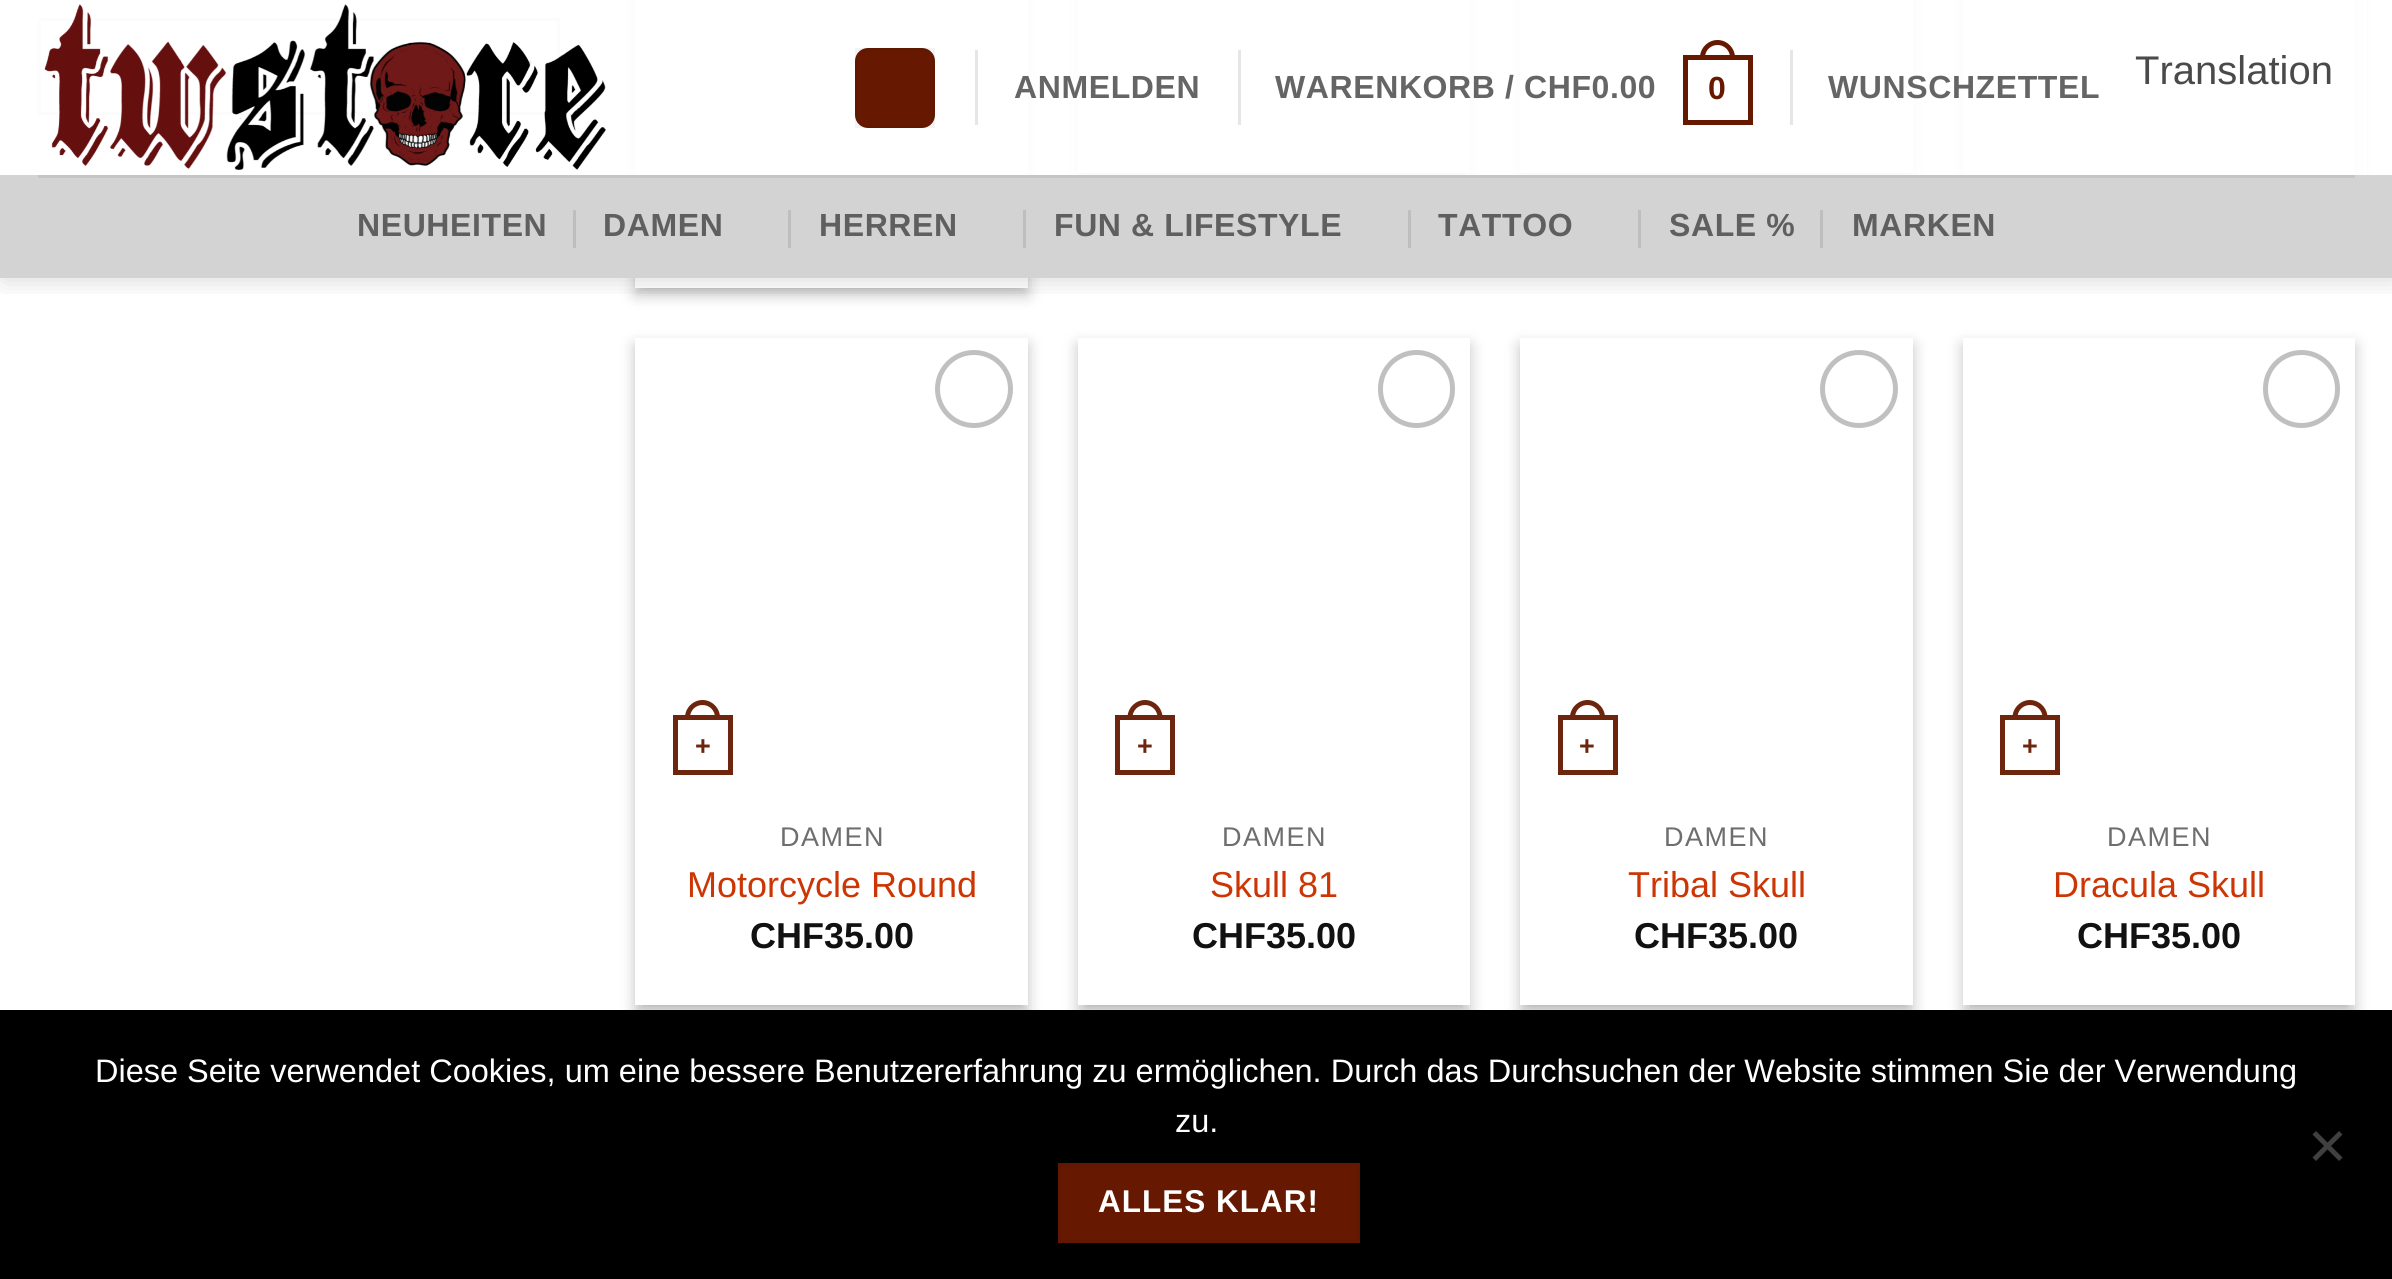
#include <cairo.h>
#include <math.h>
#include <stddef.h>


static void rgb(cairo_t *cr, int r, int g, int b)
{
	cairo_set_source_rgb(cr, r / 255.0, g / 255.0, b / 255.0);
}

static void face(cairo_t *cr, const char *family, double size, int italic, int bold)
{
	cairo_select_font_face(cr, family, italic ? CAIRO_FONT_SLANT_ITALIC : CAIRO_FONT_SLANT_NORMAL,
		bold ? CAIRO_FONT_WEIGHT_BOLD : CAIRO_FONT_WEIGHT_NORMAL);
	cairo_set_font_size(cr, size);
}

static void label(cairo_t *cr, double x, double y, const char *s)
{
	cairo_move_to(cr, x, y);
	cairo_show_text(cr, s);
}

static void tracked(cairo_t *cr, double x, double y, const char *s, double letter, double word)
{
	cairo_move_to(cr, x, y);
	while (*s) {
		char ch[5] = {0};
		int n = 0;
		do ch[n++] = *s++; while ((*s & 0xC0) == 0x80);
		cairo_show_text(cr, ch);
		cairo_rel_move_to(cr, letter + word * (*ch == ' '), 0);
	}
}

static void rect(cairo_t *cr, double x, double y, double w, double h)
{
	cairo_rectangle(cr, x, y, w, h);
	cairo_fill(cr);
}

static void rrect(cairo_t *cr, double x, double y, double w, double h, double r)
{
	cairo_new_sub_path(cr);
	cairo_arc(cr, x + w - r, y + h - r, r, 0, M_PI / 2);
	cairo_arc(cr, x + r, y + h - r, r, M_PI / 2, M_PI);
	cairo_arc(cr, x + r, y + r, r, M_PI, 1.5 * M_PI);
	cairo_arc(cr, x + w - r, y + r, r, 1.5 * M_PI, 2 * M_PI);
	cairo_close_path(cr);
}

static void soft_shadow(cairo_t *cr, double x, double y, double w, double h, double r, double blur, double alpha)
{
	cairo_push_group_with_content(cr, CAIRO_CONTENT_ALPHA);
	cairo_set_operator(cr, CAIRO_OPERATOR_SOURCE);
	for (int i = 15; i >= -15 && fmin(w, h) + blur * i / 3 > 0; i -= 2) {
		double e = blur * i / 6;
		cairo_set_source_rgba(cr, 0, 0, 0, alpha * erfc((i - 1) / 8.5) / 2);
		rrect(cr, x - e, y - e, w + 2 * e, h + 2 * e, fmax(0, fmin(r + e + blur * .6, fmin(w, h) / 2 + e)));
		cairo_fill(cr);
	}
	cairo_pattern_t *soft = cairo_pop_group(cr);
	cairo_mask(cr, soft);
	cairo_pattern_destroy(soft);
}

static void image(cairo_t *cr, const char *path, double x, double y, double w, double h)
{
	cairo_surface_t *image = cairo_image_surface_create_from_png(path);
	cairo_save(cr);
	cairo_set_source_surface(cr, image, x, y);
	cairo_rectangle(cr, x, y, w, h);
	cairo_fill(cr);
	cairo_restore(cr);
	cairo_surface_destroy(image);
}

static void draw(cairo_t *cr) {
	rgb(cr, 255, 255, 255);
	cairo_paint(cr);
	cairo_new_path(cr);
	cairo_move_to(cr, 510, 62.5);
	cairo_line_to(cr, 520, 72.5);
	cairo_line_to(cr, 530, 62.5);
	rgb(cr, 51, 51, 51);
	cairo_set_line_width(cr, 3.3);
	cairo_set_line_cap(cr, CAIRO_LINE_CAP_ROUND);
	cairo_set_line_join(cr, CAIRO_LINE_JOIN_ROUND);
	cairo_stroke(cr);
	cairo_rectangle(cr, 39.5, 19.5, 519, 94);
	rgb(cr, 221, 221, 221);
	cairo_set_line_width(cr, 3);
	cairo_set_line_cap(cr, CAIRO_LINE_CAP_BUTT);
	cairo_set_line_join(cr, CAIRO_LINE_JOIN_MITER);
	cairo_stroke(cr);
	rgb(cr, 0, 0, 0);
	soft_shadow(cr, 635, -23, 393, 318, 0, 7.5, 0.23);
	soft_shadow(cr, 645, -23, 373, 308, 0, 7.5, 0.16);
	rgb(cr, 255, 255, 255);
	rect(cr, 635, 0, 393, 288);
	rgb(cr, 0, 0, 0);
	soft_shadow(cr, 1078, -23, 392, 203, 0, 7.5, 0.23);
	soft_shadow(cr, 1088, -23, 372, 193, 0, 7.5, 0.16);
	rgb(cr, 255, 255, 255);
	rect(cr, 1078, 0, 392, 173);
	rgb(cr, 0, 0, 0);
	soft_shadow(cr, 1520, -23, 393, 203, 0, 7.5, 0.23);
	soft_shadow(cr, 1530, -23, 373, 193, 0, 7.5, 0.16);
	rgb(cr, 255, 255, 255);
	rect(cr, 1520, 0, 393, 173);
	rgb(cr, 0, 0, 0);
	soft_shadow(cr, 1963, -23, 392, 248, 0, 7.5, 0.23);
	rgb(cr, 255, 255, 255);
	rect(cr, 1963, 0, 392, 175);
	cairo_save(cr);
	cairo_rectangle(cr, 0, 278, 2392, 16);
	cairo_clip(cr);
	rgb(cr, 0, 0, 0);
	soft_shadow(cr, 3, 3, 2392, 277, 0, 12.5, 0.15);
	cairo_restore(cr);
	cairo_set_source_rgba(cr, 1, 1, 1, 0.9);
	rect(cr, 38, 0, 2329, 175);
	image(cr, "image0.png", 44, 4, 562, 166);
	rgb(cr, 102, 25, 0);
	rrect(cr, 855, 48, 80, 80, 13);
	cairo_fill(cr);
	cairo_rectangle(cr, 856.5, 49.5, 77, 77);
	cairo_set_source_rgba(cr, 0, 0, 0, 0.05);
	cairo_stroke(cr);
	rgb(cr, 230, 230, 230);
	rect(cr, 975, 50, 3, 75);
	face(cr, "Liberation Sans", 32, 0, 1);
	rgb(cr, 101, 101, 101);
	tracked(cr, 1014, 98, "ANMELDEN", 0.6, 0);
	cairo_set_source_rgba(cr, 0, 0, 0, 0.1);
	rect(cr, 1238, 50, 3, 75);
	rgb(cr, 101, 101, 101);
	tracked(cr, 1275, 98, "WARENKORB / CHF0.00", 0.6, 0);
	cairo_rectangle(cr, 1685.5, 57.5, 65, 65);
	rgb(cr, 102, 25, 0);
	cairo_set_line_width(cr, 5);
	cairo_stroke(cr);
	cairo_set_fill_rule(cr, CAIRO_FILL_RULE_EVEN_ODD);
	cairo_new_path(cr);
	cairo_move_to(cr, 1717.5, 40);
	cairo_curve_to(cr, 1727, 40, 1735, 48, 1735, 57.5);
	cairo_line_to(cr, 1735, 60);
	cairo_line_to(cr, 1700, 60);
	cairo_line_to(cr, 1700, 57.5);
	cairo_curve_to(cr, 1700, 48, 1708, 40, 1717.5, 40);
	cairo_close_path(cr);
	cairo_move_to(cr, 1717.5, 45);
	cairo_curve_to(cr, 1724.5, 45, 1730, 50.5, 1730, 57.5);
	cairo_line_to(cr, 1730, 60);
	cairo_line_to(cr, 1705, 60);
	cairo_line_to(cr, 1705, 57.5);
	cairo_curve_to(cr, 1705, 50.5, 1710.5, 45, 1717.5, 45);
	cairo_close_path(cr);
	cairo_fill(cr);
	tracked(cr, 1708, 99, "0", 0.6, 0);
	cairo_set_source_rgba(cr, 0, 0, 0, 0.1);
	rect(cr, 1790, 50, 3, 75);
	rgb(cr, 101, 101, 101);
	tracked(cr, 1828, 98, "WUNSCHZETTEL", 0.6, 0);
	face(cr, "Liberation Sans", 40, 0, 0);
	rgb(cr, 74, 74, 74);
	label(cr, 2135, 84, "Translation");
	rgb(cr, 211, 211, 211);
	rect(cr, 0, 175, 2392, 103);
	rgb(cr, 197, 197, 197);
	rect(cr, 38, 175, 2317, 3);
	face(cr, "Liberation Sans", 32, 0, 1);
	rgb(cr, 95, 95, 95);
	tracked(cr, 357, 236, "NEUHEITEN", 0.6, 0);
	rgb(cr, 190, 190, 190);
	rect(cr, 573, 210, 3, 38);
	rgb(cr, 95, 95, 95);
	tracked(cr, 603, 236, "DAMEN", 0.6, 0);
	rgb(cr, 190, 190, 190);
	rect(cr, 788, 210, 3, 38);
	rgb(cr, 95, 95, 95);
	tracked(cr, 819, 236, "HERREN", 0.6, 0);
	rgb(cr, 190, 190, 190);
	rect(cr, 1023, 210, 3, 38);
	rgb(cr, 95, 95, 95);
	tracked(cr, 1054, 236, "FUN & LIFESTYLE", 0.6, 0);
	rgb(cr, 190, 190, 190);
	rect(cr, 1408, 210, 3, 38);
	rgb(cr, 95, 95, 95);
	tracked(cr, 1438, 236, "TATTOO", 0.6, 0);
	rgb(cr, 190, 190, 190);
	rect(cr, 1638, 210, 3, 38);
	rgb(cr, 95, 95, 95);
	tracked(cr, 1669, 236, "SALE %", 0.6, 0);
	rgb(cr, 190, 190, 190);
	rect(cr, 1820, 210, 3, 38);
	rgb(cr, 95, 95, 95);
	tracked(cr, 1852, 236, "MARKEN", 0.6, 0);
	rgb(cr, 0, 0, 0);
	soft_shadow(cr, 635, 345, 393, 668, 0, 7.5, 0.23);
	soft_shadow(cr, 645, 355, 373, 648, 0, 7.5, 0.16);
	rgb(cr, 255, 255, 255);
	rect(cr, 635, 338, 393, 667);
	cairo_arc(cr, 974, 389, 36.5, 0, 2 * M_PI);
	rgb(cr, 192, 192, 192);
	cairo_stroke(cr);
	cairo_rectangle(cr, 675.5, 717.5, 55, 55);
	rgb(cr, 110, 37, 13);
	cairo_stroke(cr);
	cairo_new_path(cr);
	cairo_move_to(cr, 702.5, 700);
	cairo_curve_to(cr, 712, 700, 720, 708, 720, 717.5);
	cairo_line_to(cr, 720, 720);
	cairo_line_to(cr, 685, 720);
	cairo_line_to(cr, 685, 717.5);
	cairo_curve_to(cr, 685, 708, 693, 700, 702.5, 700);
	cairo_close_path(cr);
	cairo_move_to(cr, 702.5, 705);
	cairo_curve_to(cr, 709.5, 705, 715, 710.5, 715, 717.5);
	cairo_line_to(cr, 715, 720);
	cairo_line_to(cr, 690, 720);
	cairo_line_to(cr, 690, 717.5);
	cairo_curve_to(cr, 690, 710.5, 695.5, 705, 702.5, 705);
	cairo_close_path(cr);
	cairo_fill(cr);
	face(cr, "Liberation Sans", 27, 0, 1);
	label(cr, 695, 755, "+");
	face(cr, "Liberation Sans", 27, 0, 0);
	rgb(cr, 110, 110, 110);
	tracked(cr, 780, 846, "DAMEN", 1.5, 0);
	face(cr, "Liberation Sans", 36, 0, 0);
	rgb(cr, 204, 54, 4);
	label(cr, 687, 897, "Motorcycle Round");
	face(cr, "Liberation Sans", 36, 0, 1);
	rgb(cr, 17, 17, 17);
	label(cr, 750, 948, "CHF35.00");
	cairo_save(cr);
	cairo_new_path(cr);
	cairo_move_to(cr, 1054, 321);
	cairo_line_to(cr, 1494, 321);
	cairo_line_to(cr, 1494, 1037);
	cairo_line_to(cr, 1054, 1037);
	cairo_close_path(cr);
	cairo_move_to(cr, 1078, 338);
	cairo_line_to(cr, 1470, 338);
	cairo_line_to(cr, 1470, 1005);
	cairo_line_to(cr, 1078, 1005);
	cairo_close_path(cr);
	cairo_clip(cr);
	rgb(cr, 0, 0, 0);
	soft_shadow(cr, 1078, 345, 392, 668, 0, 7.5, 0.23);
	cairo_restore(cr);
	cairo_save(cr);
	cairo_set_fill_rule(cr, CAIRO_FILL_RULE_WINDING);
	cairo_rectangle(cr, 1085, 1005, 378, 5);
	cairo_clip(cr);
	rgb(cr, 0, 0, 0);
	soft_shadow(cr, 1088, 355, 372, 648, 0, 7.5, 0.16);
	cairo_restore(cr);
	rrect(cr, 1380.5, 352.5, 72, 73, 36);
	rgb(cr, 192, 192, 192);
	cairo_stroke(cr);
	cairo_rectangle(cr, 1117.5, 717.5, 55, 55);
	rgb(cr, 110, 37, 13);
	cairo_stroke(cr);
	cairo_new_path(cr);
	cairo_move_to(cr, 1145, 700);
	cairo_curve_to(cr, 1154.5, 700, 1162.5, 708, 1162.5, 717.5);
	cairo_line_to(cr, 1162.5, 720);
	cairo_line_to(cr, 1127.5, 720);
	cairo_line_to(cr, 1127.5, 717.5);
	cairo_curve_to(cr, 1127.5, 708, 1135.5, 700, 1145, 700);
	cairo_close_path(cr);
	cairo_move_to(cr, 1145, 705);
	cairo_curve_to(cr, 1152, 705, 1157.5, 710.5, 1157.5, 717.5);
	cairo_line_to(cr, 1157.5, 720);
	cairo_line_to(cr, 1132.5, 720);
	cairo_line_to(cr, 1132.5, 717.5);
	cairo_curve_to(cr, 1132.5, 710.5, 1138, 705, 1145, 705);
	cairo_close_path(cr);
	cairo_fill(cr);
	face(cr, "Liberation Sans", 27, 0, 1);
	label(cr, 1137, 755, "+");
	face(cr, "Liberation Sans", 27, 0, 0);
	rgb(cr, 110, 110, 110);
	tracked(cr, 1222, 846, "DAMEN", 1.5, 0);
	face(cr, "Liberation Sans", 36, 0, 0);
	rgb(cr, 204, 54, 4);
	label(cr, 1210, 897, "Skull 81");
	face(cr, "Liberation Sans", 36, 0, 1);
	rgb(cr, 17, 17, 17);
	label(cr, 1192, 948, "CHF35.00");
	rgb(cr, 0, 0, 0);
	soft_shadow(cr, 1520, 345, 393, 668, 0, 7.5, 0.23);
	soft_shadow(cr, 1530, 355, 373, 648, 0, 7.5, 0.16);
	rgb(cr, 255, 255, 255);
	rect(cr, 1520, 338, 393, 667);
	cairo_arc(cr, 1859, 389, 36.5, 0, 2 * M_PI);
	rgb(cr, 192, 192, 192);
	cairo_stroke(cr);
	cairo_rectangle(cr, 1560.5, 717.5, 55, 55);
	rgb(cr, 110, 37, 13);
	cairo_stroke(cr);
	cairo_new_path(cr);
	cairo_move_to(cr, 1587.5, 700);
	cairo_curve_to(cr, 1597, 700, 1605, 708, 1605, 717.5);
	cairo_line_to(cr, 1605, 720);
	cairo_line_to(cr, 1570, 720);
	cairo_line_to(cr, 1570, 717.5);
	cairo_curve_to(cr, 1570, 708, 1578, 700, 1587.5, 700);
	cairo_close_path(cr);
	cairo_move_to(cr, 1587.5, 705);
	cairo_curve_to(cr, 1594.5, 705, 1600, 710.5, 1600, 717.5);
	cairo_line_to(cr, 1600, 720);
	cairo_line_to(cr, 1575, 720);
	cairo_line_to(cr, 1575, 717.5);
	cairo_curve_to(cr, 1575, 710.5, 1580.5, 705, 1587.5, 705);
	cairo_close_path(cr);
	cairo_fill(cr);
	face(cr, "Liberation Sans", 27, 0, 1);
	label(cr, 1579, 755, "+");
	face(cr, "Liberation Sans", 27, 0, 0);
	rgb(cr, 110, 110, 110);
	tracked(cr, 1664, 846, "DAMEN", 1.5, 0);
	face(cr, "Liberation Sans", 36, 0, 0);
	rgb(cr, 204, 54, 4);
	label(cr, 1628, 897, "Tribal Skull");
	face(cr, "Liberation Sans", 36, 0, 1);
	rgb(cr, 17, 17, 17);
	label(cr, 1634, 948, "CHF35.00");
	cairo_save(cr);
	cairo_new_path(cr);
	cairo_move_to(cr, 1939, 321);
	cairo_line_to(cr, 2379, 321);
	cairo_line_to(cr, 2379, 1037);
	cairo_line_to(cr, 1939, 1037);
	cairo_close_path(cr);
	cairo_move_to(cr, 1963, 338);
	cairo_line_to(cr, 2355, 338);
	cairo_line_to(cr, 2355, 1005);
	cairo_line_to(cr, 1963, 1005);
	cairo_close_path(cr);
	cairo_clip(cr);
	rgb(cr, 0, 0, 0);
	soft_shadow(cr, 1963, 345, 392, 668, 0, 7.5, 0.23);
	cairo_restore(cr);
	cairo_save(cr);
	cairo_set_fill_rule(cr, CAIRO_FILL_RULE_WINDING);
	cairo_rectangle(cr, 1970, 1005, 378, 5);
	cairo_clip(cr);
	rgb(cr, 0, 0, 0);
	soft_shadow(cr, 1973, 355, 372, 648, 0, 7.5, 0.16);
	cairo_restore(cr);
	rrect(cr, 2265.5, 352.5, 72, 73, 36);
	rgb(cr, 192, 192, 192);
	cairo_stroke(cr);
	cairo_rectangle(cr, 2002.5, 717.5, 55, 55);
	rgb(cr, 110, 37, 13);
	cairo_stroke(cr);
	cairo_new_path(cr);
	cairo_move_to(cr, 2030, 700);
	cairo_curve_to(cr, 2039.5, 700, 2047.5, 708, 2047.5, 717.5);
	cairo_line_to(cr, 2047.5, 720);
	cairo_line_to(cr, 2012.5, 720);
	cairo_line_to(cr, 2012.5, 717.5);
	cairo_curve_to(cr, 2012.5, 708, 2020.5, 700, 2030, 700);
	cairo_close_path(cr);
	cairo_move_to(cr, 2030, 705);
	cairo_curve_to(cr, 2037, 705, 2042.5, 710.5, 2042.5, 717.5);
	cairo_line_to(cr, 2042.5, 720);
	cairo_line_to(cr, 2017.5, 720);
	cairo_line_to(cr, 2017.5, 717.5);
	cairo_curve_to(cr, 2017.5, 710.5, 2023, 705, 2030, 705);
	cairo_close_path(cr);
	cairo_fill(cr);
	face(cr, "Liberation Sans", 27, 0, 1);
	label(cr, 2022, 755, "+");
	face(cr, "Liberation Sans", 27, 0, 0);
	rgb(cr, 110, 110, 110);
	tracked(cr, 2107, 846, "DAMEN", 1.5, 0);
	face(cr, "Liberation Sans", 36, 0, 0);
	rgb(cr, 204, 54, 4);
	label(cr, 2053, 897, "Dracula Skull");
	face(cr, "Liberation Sans", 36, 0, 1);
	rgb(cr, 17, 17, 17);
	label(cr, 2077, 948, "CHF35.00");
	rgb(cr, 0, 0, 0);
	rect(cr, 0, 1010, 2392, 269);
	face(cr, "Liberation Sans", 32.5, 0, 0);
	rgb(cr, 255, 255, 255);
	label(cr, 95, 1082, "Diese Seite verwendet Cookies, um eine bessere Benutzererfahrung zu ermöglichen. Durch das Durchsuchen der Website stimmen Sie der Verwendung");
	label(cr, 1175, 1132, "zu.");
	rgb(cr, 64, 64, 64);
	cairo_set_fill_rule(cr, CAIRO_FILL_RULE_WINDING);
	cairo_new_path(cr);
	cairo_move_to(cr, 2339, 1131);
	cairo_line_to(cr, 2342.5, 1134.5);
	cairo_line_to(cr, 2316, 1161);
	cairo_line_to(cr, 2312.5, 1157.5);
	cairo_close_path(cr);
	cairo_fill(cr);
	cairo_new_path(cr);
	cairo_move_to(cr, 2312.5, 1134.5);
	cairo_line_to(cr, 2316, 1131);
	cairo_line_to(cr, 2342.5, 1157.5);
	cairo_line_to(cr, 2339, 1161);
	cairo_close_path(cr);
	cairo_fill(cr);
	rgb(cr, 102, 25, 0);
	cairo_rectangle(cr, 1059.5, 1164.5, 299, 77);
	cairo_fill_preserve(cr);
	rgb(cr, 97, 24, 0);
	cairo_set_line_width(cr, 3);
	cairo_stroke(cr);
	face(cr, "Liberation Sans", 31.5, 0, 1);
	rgb(cr, 255, 255, 255);
	tracked(cr, 1098, 1212, "ALLES KLAR!", 1, 0);
}

int main(void) {
	cairo_surface_t *surface = cairo_image_surface_create(CAIRO_FORMAT_RGB24, 2392, 1279);
	cairo_t *cr = cairo_create(surface);
	cairo_font_options_t *options = cairo_font_options_create();
	cairo_font_options_set_hint_metrics(options, CAIRO_HINT_METRICS_OFF);
	cairo_font_options_set_hint_style(options, CAIRO_HINT_STYLE_NONE);
	cairo_set_font_options(cr, options);
	cairo_set_miter_limit(cr, 4);
	draw(cr);
	cairo_surface_write_to_png(surface, "render.png");
	cairo_font_options_destroy(options);
	cairo_destroy(cr);
	cairo_surface_destroy(surface);
	return 0;
}
